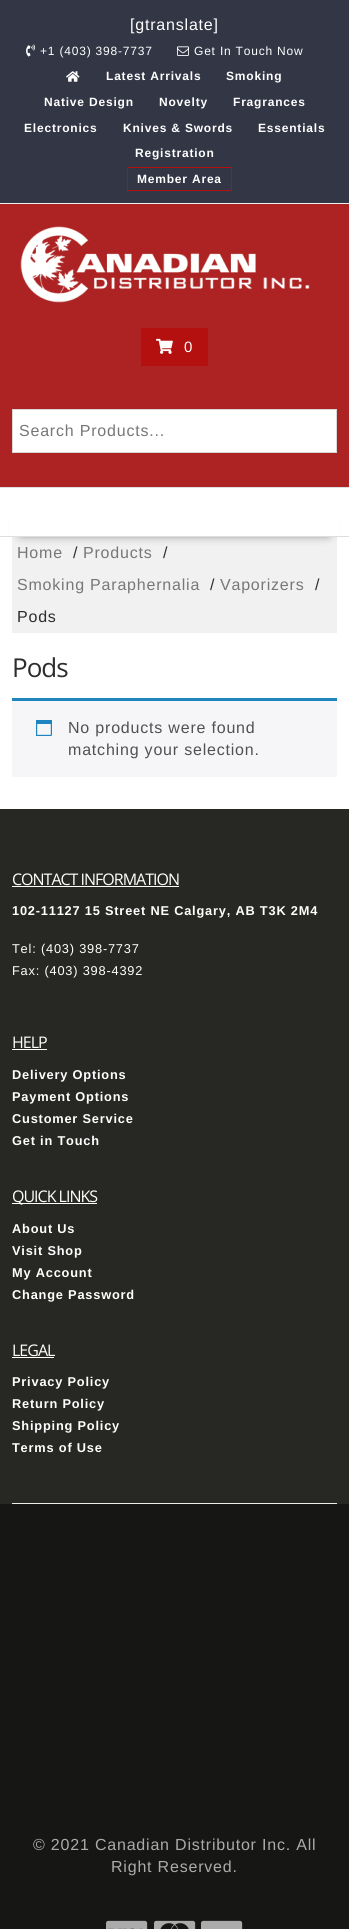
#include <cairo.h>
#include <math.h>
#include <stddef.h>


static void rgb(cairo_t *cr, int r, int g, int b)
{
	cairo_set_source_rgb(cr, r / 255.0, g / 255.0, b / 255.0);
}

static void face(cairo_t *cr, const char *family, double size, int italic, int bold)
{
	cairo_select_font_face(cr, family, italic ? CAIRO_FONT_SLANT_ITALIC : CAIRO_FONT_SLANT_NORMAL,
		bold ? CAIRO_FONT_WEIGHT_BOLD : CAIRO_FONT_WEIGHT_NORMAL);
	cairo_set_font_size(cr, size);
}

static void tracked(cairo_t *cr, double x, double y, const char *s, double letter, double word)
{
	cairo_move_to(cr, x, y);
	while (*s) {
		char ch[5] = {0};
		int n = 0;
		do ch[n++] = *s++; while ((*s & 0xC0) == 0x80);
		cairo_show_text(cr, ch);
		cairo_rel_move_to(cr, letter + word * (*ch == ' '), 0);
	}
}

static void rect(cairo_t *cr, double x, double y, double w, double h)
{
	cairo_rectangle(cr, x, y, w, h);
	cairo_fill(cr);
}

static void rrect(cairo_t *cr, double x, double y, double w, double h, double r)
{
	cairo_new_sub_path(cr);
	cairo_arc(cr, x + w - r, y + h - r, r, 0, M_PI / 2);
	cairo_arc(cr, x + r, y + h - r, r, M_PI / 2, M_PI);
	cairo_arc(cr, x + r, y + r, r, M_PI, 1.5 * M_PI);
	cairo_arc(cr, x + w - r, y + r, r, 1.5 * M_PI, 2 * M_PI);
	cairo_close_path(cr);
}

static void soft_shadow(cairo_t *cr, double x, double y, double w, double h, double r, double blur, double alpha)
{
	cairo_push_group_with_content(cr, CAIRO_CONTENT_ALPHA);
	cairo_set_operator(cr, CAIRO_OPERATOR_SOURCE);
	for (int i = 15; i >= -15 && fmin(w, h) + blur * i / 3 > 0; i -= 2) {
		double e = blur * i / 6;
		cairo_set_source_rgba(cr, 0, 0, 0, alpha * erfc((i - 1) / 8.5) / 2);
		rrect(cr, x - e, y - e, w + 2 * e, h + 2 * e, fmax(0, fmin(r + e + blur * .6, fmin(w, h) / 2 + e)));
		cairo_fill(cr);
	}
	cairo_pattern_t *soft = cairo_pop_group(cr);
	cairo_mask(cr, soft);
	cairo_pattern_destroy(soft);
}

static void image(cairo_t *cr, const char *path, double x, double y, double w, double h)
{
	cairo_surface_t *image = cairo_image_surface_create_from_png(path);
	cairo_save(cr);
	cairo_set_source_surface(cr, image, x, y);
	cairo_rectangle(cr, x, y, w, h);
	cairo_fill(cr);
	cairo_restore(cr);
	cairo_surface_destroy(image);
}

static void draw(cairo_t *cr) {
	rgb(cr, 255, 255, 255);
	cairo_paint(cr);
	rgb(cr, 51, 54, 69);
	rect(cr, 0, 0, 349, 203);
	rgb(cr, 238, 238, 238);
	rect(cr, 0, 203, 349, 1);
	face(cr, "Liberation Sans", 16, 0, 0);
	rgb(cr, 255, 255, 255);
	tracked(cr, 130, 30, "[gtranslate]", 0.8, 0);
	image(cr, "image0.png", 26, 44, 9, 13);
	face(cr, "Liberation Sans", 12, 0, 0);
	tracked(cr, 40, 55, "+1 (403) 398-7737", 0.8, 0);
	image(cr, "image1.png", 177, 46, 12, 10);
	tracked(cr, 194, 55, "Get In Touch Now", 0.8, 0);
	image(cr, "image2.png", 66, 71, 14, 11);
	face(cr, "Liberation Sans", 12, 0, 1);
	tracked(cr, 106, 80, "Latest Arrivals", 0.8, 0);
	tracked(cr, 226, 80, "Smoking", 0.8, 0);
	tracked(cr, 44, 106, "Native Design", 0.8, 0);
	tracked(cr, 159, 106, "Novelty", 0.8, 0);
	tracked(cr, 233, 106, "Fragrances", 0.8, 0);
	tracked(cr, 24, 132, "Electronics", 0.8, 0);
	tracked(cr, 123, 132, "Knives & Swords", 0.8, 0);
	tracked(cr, 258, 132, "Essentials", 0.8, 0);
	tracked(cr, 135, 157, "Registration", 0.8, 0);
	cairo_rectangle(cr, 127.5, 167.5, 104, 23);
	rgb(cr, 181, 16, 16);
	cairo_set_line_width(cr, 1);
	cairo_stroke(cr);
	rgb(cr, 255, 255, 255);
	tracked(cr, 137, 183, "Member Area", 0.8, 0);
	rgb(cr, 173, 35, 35);
	rect(cr, 0, 204, 349, 283);
	image(cr, "image3.png", 20, 226, 290, 77);
	rgb(cr, 181, 16, 16);
	rect(cr, 141, 328, 67, 38);
	image(cr, "image4.png", 156, 338, 17, 16);
	face(cr, "Liberation Sans", 15, 0, 0);
	rgb(cr, 255, 255, 255);
	tracked(cr, 184, 352, "0", 0.8, 0);
	cairo_rectangle(cr, 12.5, 409.5, 324, 43);
	cairo_fill_preserve(cr);
	rgb(cr, 216, 216, 216);
	cairo_stroke(cr);
	face(cr, "Liberation Sans", 16, 0, 0);
	rgb(cr, 119, 119, 119);
	tracked(cr, 19, 436, "Search Products...", 0.8, 0);
	rgb(cr, 241, 241, 241);
	rect(cr, 12, 537, 325, 96);
	rgb(cr, 0, 0, 0);
	soft_shadow(cr, 21, 525, 307, 8, 0, 5.5, 0.75);
	rgb(cr, 255, 255, 255);
	rect(cr, 10, 513, 329, 23);
	rgb(cr, 222, 222, 222);
	rect(cr, 0, 487, 349, 1);
	rect(cr, 0, 536, 349, 1);
	rgb(cr, 119, 119, 119);
	tracked(cr, 17, 558, "Home", 0.8, 0);
	rgb(cr, 45, 45, 45);
	tracked(cr, 73, 558, "/", 0.8, 0);
	rgb(cr, 119, 119, 119);
	tracked(cr, 83, 558, "Products", 0.8, 0);
	rgb(cr, 45, 45, 45);
	tracked(cr, 163, 558, "/", 0.8, 0);
	rgb(cr, 119, 119, 119);
	tracked(cr, 17, 590, "Smoking Paraphernalia", 0.8, 0);
	rgb(cr, 45, 45, 45);
	tracked(cr, 210, 590, "/", 0.8, 0);
	rgb(cr, 119, 119, 119);
	tracked(cr, 220, 590, "Vaporizers", 0.8, 0);
	rgb(cr, 45, 45, 45);
	tracked(cr, 315, 590, "/", 0.8, 0);
	tracked(cr, 17, 622, "Pods", 0.8, 0);
	face(cr, "Open Sans", 26, 0, 0);
	tracked(cr, 12, 677, "Pods", -1, 0);
	rgb(cr, 246, 245, 248);
	rect(cr, 12, 701, 325, 76);
	rgb(cr, 30, 133, 190);
	rect(cr, 12, 698, 325, 3);
	image(cr, "image5.png", 36, 720, 16, 16);
	face(cr, "Liberation Sans", 16, 0, 0);
	rgb(cr, 81, 81, 81);
	tracked(cr, 68, 733, "No products were found", 0.8, 0);
	tracked(cr, 68, 755, "matching your selection.", 0.8, 0);
	rgb(cr, 39, 40, 35);
	rect(cr, 0, 809, 349, 695);
	rgb(cr, 237, 237, 237);
	rect(cr, 12, 1503, 325, 1);
	face(cr, "Open Sans", 16, 0, 0);
	rgb(cr, 255, 255, 255);
	tracked(cr, 12, 885, "CONTACT INFORMATION", -1, 0);
	rect(cr, 12, 886, 167, 1);
	face(cr, "Liberation Sans", 12.8, 0, 1);
	tracked(cr, 12, 915, "102-11127 15 Street NE Calgary, AB T3K 2M4", 0.8, 0);
	face(cr, "Liberation Sans", 12.8, 0, 0);
	tracked(cr, 12, 953, "Tel: (403) 398-7737", 0.8, 0);
	tracked(cr, 12, 975, "Fax: (403) 398-4392", 0.8, 0);
	face(cr, "Open Sans", 16, 0, 0);
	tracked(cr, 12, 1048, "HELP", -1, 0);
	rect(cr, 12, 1049, 35, 1);
	face(cr, "Liberation Sans", 12.8, 0, 1);
	tracked(cr, 12, 1079, "Delivery Options", 0.8, 0);
	tracked(cr, 12, 1101, "Payment Options", 0.8, 0);
	tracked(cr, 12, 1123, "Customer Service", 0.8, 0);
	tracked(cr, 12, 1145, "Get in Touch", 0.8, 0);
	rect(cr, 12, 1203, 85, 1);
	face(cr, "Open Sans", 16, 0, 0);
	tracked(cr, 12, 1202, "QUICK LINKS", -1, 0);
	face(cr, "Liberation Sans", 12.8, 0, 1);
	tracked(cr, 12, 1233, "About Us", 0.8, 0);
	tracked(cr, 12, 1255, "Visit Shop", 0.8, 0);
	tracked(cr, 12, 1277, "My Account", 0.8, 0);
	tracked(cr, 12, 1299, "Change Password", 0.8, 0);
	face(cr, "Open Sans", 16, 0, 0);
	tracked(cr, 12, 1356, "LEGAL", -1, 0);
	rect(cr, 12, 1357, 42, 1);
	face(cr, "Liberation Sans", 12.8, 0, 1);
	tracked(cr, 12, 1386, "Privacy Policy", 0.8, 0);
	tracked(cr, 12, 1408, "Return Policy", 0.8, 0);
	tracked(cr, 12, 1430, "Shipping Policy", 0.8, 0);
	tracked(cr, 12, 1452, "Terms of Use", 0.8, 0);
	rgb(cr, 22, 22, 20);
	rect(cr, 0, 1504, 349, 425);
	face(cr, "Liberation Sans", 16, 0, 0);
	rgb(cr, 171, 171, 171);
	tracked(cr, 33, 1850, "© 2021 Canadian Distributor Inc. All", 0.8, 0);
	tracked(cr, 111, 1872, "Right Reserved.", 0.8, 0);
	image(cr, "image6.png", 106, 1920, 42, 9);
	image(cr, "image7.png", 154, 1920, 42, 9);
	image(cr, "image8.png", 201, 1920, 42, 9);
}

int main(void) {
	cairo_surface_t *surface = cairo_image_surface_create(CAIRO_FORMAT_RGB24, 349, 1929);
	cairo_t *cr = cairo_create(surface);
	cairo_font_options_t *options = cairo_font_options_create();
	cairo_font_options_set_hint_metrics(options, CAIRO_HINT_METRICS_OFF);
	cairo_font_options_set_hint_style(options, CAIRO_HINT_STYLE_NONE);
	cairo_set_font_options(cr, options);
	cairo_set_miter_limit(cr, 4);
	draw(cr);
	cairo_surface_write_to_png(surface, "render.png");
	cairo_font_options_destroy(options);
	cairo_destroy(cr);
	cairo_surface_destroy(surface);
	return 0;
}
